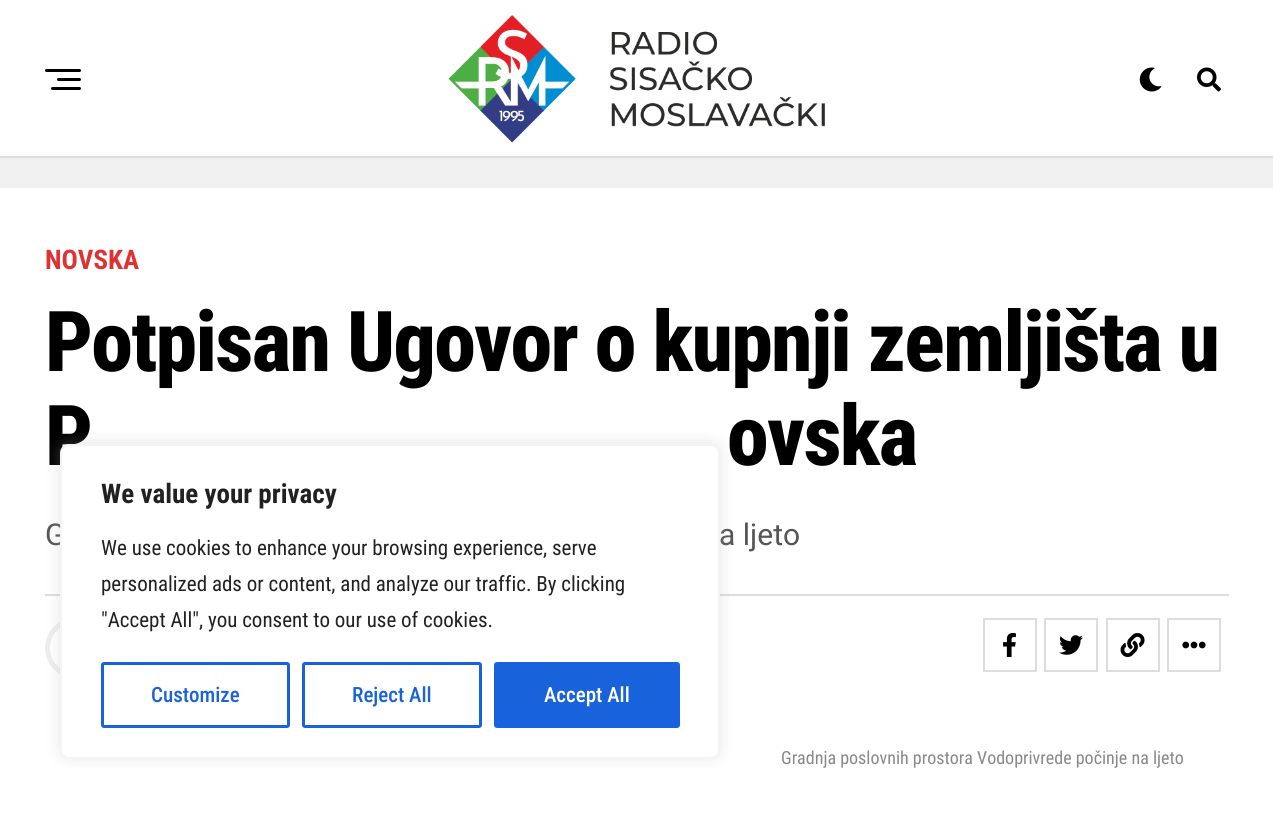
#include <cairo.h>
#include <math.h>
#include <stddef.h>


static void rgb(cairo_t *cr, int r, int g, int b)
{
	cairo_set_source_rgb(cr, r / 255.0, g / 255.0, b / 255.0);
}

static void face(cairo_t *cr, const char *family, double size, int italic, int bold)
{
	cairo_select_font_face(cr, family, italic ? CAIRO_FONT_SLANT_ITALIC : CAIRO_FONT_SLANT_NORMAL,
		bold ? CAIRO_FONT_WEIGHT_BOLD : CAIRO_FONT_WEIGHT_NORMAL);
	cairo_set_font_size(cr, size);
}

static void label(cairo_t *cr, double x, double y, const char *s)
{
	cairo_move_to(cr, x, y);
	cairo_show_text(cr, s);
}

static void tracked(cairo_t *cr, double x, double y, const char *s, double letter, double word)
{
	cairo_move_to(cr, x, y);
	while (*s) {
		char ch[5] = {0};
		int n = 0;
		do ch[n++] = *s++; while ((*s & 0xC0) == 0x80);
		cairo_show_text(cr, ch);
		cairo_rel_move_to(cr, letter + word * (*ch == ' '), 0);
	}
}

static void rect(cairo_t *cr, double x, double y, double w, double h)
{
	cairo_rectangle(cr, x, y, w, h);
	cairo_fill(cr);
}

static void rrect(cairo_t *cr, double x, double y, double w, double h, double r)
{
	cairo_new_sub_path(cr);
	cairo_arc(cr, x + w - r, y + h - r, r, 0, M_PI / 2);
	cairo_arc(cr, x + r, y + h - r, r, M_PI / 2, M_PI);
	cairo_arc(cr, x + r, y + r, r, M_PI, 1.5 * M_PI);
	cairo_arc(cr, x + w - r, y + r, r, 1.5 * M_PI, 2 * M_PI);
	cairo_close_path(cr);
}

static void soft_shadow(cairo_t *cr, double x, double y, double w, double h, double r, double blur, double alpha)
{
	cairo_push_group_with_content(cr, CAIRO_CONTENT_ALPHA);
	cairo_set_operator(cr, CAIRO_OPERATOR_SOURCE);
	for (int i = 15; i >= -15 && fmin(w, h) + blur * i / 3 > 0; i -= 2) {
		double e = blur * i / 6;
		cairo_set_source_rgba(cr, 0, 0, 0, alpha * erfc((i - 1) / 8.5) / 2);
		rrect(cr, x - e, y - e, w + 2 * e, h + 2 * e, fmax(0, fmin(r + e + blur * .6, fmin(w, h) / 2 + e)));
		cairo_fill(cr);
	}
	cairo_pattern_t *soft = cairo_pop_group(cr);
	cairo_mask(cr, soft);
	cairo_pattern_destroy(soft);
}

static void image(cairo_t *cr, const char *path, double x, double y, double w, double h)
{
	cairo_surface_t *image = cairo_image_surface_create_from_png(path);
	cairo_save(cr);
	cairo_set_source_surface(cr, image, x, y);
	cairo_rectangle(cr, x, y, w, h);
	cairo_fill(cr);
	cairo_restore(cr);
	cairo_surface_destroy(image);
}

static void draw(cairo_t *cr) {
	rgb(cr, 240, 240, 240);
	cairo_paint(cr);
	rgb(cr, 255, 255, 255);
	rect(cr, 0, 0, 1273, 156);
	rgb(cr, 221, 221, 221);
	rect(cr, 0, 156, 1273, 2);
	rgb(cr, 0, 0, 0);
	rrect(cr, 45, 69, 36, 3, 1.5);
	cairo_fill(cr);
	rrect(cr, 57, 78, 24, 3, 1.5);
	cairo_fill(cr);
	rrect(cr, 51, 87, 30, 3, 1.5);
	cairo_fill(cr);
	image(cr, "image0.png", 448, 15, 377, 128);
	image(cr, "image1.png", 1139, 67, 23, 25);
	image(cr, "image2.png", 1197, 67, 24, 25);
	rgb(cr, 255, 255, 255);
	rect(cr, 0, 188, 1273, 630);
	face(cr, "Roboto Condensed", 27, 0, 1);
	rgb(cr, 221, 51, 51);
	label(cr, 45, 269, "NOVSKA");
	face(cr, "Roboto Condensed ExtraBold", 84, 0, 0);
	rgb(cr, 0, 0, 0);
	tracked(cr, 45, 371, "Potpisan Ugovor o kupnji zemljišta u", -1.7, 0);
	tracked(cr, 45, 465, "P", -1.7, 0);
	tracked(cr, 727, 465, "ovska", -1.7, 0);
	face(cr, "Roboto", 30, 0, 0);
	rgb(cr, 85, 85, 85);
	label(cr, 45, 545, "G");
	label(cr, 719, 545, "a ljeto");
	rgb(cr, 221, 221, 221);
	rect(cr, 45, 594, 1184, 2);
	cairo_new_path(cr);
	cairo_arc(cr, 75, 648, 27.5, 0, 2 * M_PI);
	rgb(cr, 238, 238, 238);
	cairo_set_line_width(cr, 5);
	cairo_stroke(cr);
	cairo_rectangle(cr, 984, 619, 52, 52);
	rgb(cr, 221, 221, 221);
	cairo_set_line_width(cr, 2);
	cairo_stroke(cr);
	image(cr, "image3.png", 1003, 633, 13, 24);
	cairo_rectangle(cr, 1045, 619, 52, 52);
	cairo_stroke(cr);
	image(cr, "image4.png", 1059, 635, 24, 20);
	cairo_rectangle(cr, 1107, 619, 52, 52);
	cairo_stroke(cr);
	image(cr, "image5.png", 1120, 633, 25, 24);
	cairo_rectangle(cr, 1168, 619, 52, 52);
	cairo_stroke(cr);
	image(cr, "image6.png", 1182, 641, 24, 8);
	face(cr, "Roboto Condensed", 18, 0, 0);
	rgb(cr, 136, 136, 136);
	label(cr, 781, 764, "Gradnja poslovnih prostora Vodoprivrede počinje na ljeto");
	rgb(cr, 172, 171, 171);
	soft_shadow(cr, 60, 443, 660, 315, 9, 7.5, 0.3);
	rgb(cr, 255, 255, 255);
	rrect(cr, 61, 445, 658, 313, 8);
	cairo_fill_preserve(cr);
	rgb(cr, 244, 244, 244);
	cairo_stroke(cr);
	face(cr, "Roboto Condensed", 27, 0, 1);
	rgb(cr, 33, 33, 33);
	label(cr, 101, 503, "We value your privacy");
	face(cr, "Roboto Condensed", 21, 0, 0);
	label(cr, 101, 555, "We use cookies to enhance your browsing experience, serve");
	label(cr, 101, 591, "personalized ads or content, and analyze our traffic. By clicking");
	label(cr, 101, 627, "\"Accept All\", you consent to our use of cookies.");
	rrect(cr, 102.5, 663.5, 186, 63, 1.5);
	rgb(cr, 24, 99, 220);
	cairo_set_line_width(cr, 3);
	cairo_stroke(cr);
	face(cr, "Roboto Condensed Medium", 21, 0, 0);
	label(cr, 151, 702, "Customize");
	rrect(cr, 303.5, 663.5, 177, 63, 1.5);
	cairo_stroke(cr);
	label(cr, 352, 702, "Reject All");
	rrect(cr, 495.5, 663.5, 183, 63, 1.5);
	cairo_fill_preserve(cr);
	cairo_stroke(cr);
	rgb(cr, 255, 255, 255);
	label(cr, 544, 702, "Accept All");
}

int main(void) {
	cairo_surface_t *surface = cairo_image_surface_create(CAIRO_FORMAT_RGB24, 1273, 818);
	cairo_t *cr = cairo_create(surface);
	cairo_font_options_t *options = cairo_font_options_create();
	cairo_font_options_set_hint_metrics(options, CAIRO_HINT_METRICS_OFF);
	cairo_font_options_set_hint_style(options, CAIRO_HINT_STYLE_NONE);
	cairo_set_font_options(cr, options);
	cairo_set_miter_limit(cr, 4);
	draw(cr);
	cairo_surface_write_to_png(surface, "render.png");
	cairo_font_options_destroy(options);
	cairo_destroy(cr);
	cairo_surface_destroy(surface);
	return 0;
}
